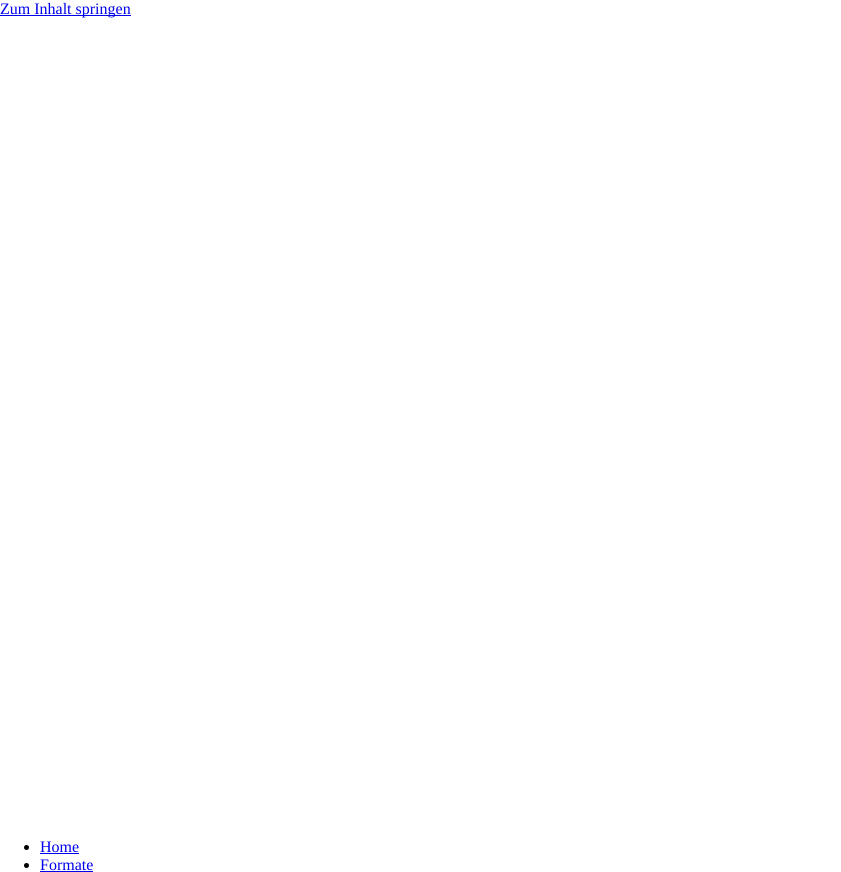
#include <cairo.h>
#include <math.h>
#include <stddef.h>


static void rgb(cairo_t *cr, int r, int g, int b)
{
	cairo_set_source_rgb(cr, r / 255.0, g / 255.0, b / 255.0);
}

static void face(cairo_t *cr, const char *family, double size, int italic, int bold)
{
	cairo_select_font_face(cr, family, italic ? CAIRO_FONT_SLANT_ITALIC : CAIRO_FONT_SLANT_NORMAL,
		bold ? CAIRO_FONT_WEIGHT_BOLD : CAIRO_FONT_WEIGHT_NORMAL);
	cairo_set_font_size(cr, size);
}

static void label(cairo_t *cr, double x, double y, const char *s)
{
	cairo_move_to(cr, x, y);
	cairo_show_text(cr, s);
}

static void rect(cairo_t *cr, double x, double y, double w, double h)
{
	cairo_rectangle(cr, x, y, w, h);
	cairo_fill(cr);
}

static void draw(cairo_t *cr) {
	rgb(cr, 255, 255, 255);
	cairo_paint(cr);
	rgb(cr, 0, 0, 238);
	rect(cr, 0, 15, 131, 1);
	face(cr, "Liberation Serif", 16, 0, 0);
	label(cr, 0, 14, "Zum Inhalt springen");
	rgb(cr, 0, 0, 0);
	cairo_new_path(cr);
	cairo_arc(cr, 26.5, 847.5, 2.5, 0, 2 * M_PI);
	cairo_fill(cr);
	rgb(cr, 0, 0, 238);
	label(cr, 40, 852, "Home");
	rect(cr, 40, 853, 39, 1);
	rgb(cr, 0, 0, 0);
	cairo_new_path(cr);
	cairo_arc(cr, 26.5, 865.5, 2.5, 0, 2 * M_PI);
	cairo_fill(cr);
	rgb(cr, 0, 0, 238);
	label(cr, 40, 870, "Formate");
	rect(cr, 40, 871, 53, 1);
}

int main(void) {
	cairo_surface_t *surface = cairo_image_surface_create(CAIRO_FORMAT_RGB24, 841, 872);
	cairo_t *cr = cairo_create(surface);
	cairo_font_options_t *options = cairo_font_options_create();
	cairo_font_options_set_hint_metrics(options, CAIRO_HINT_METRICS_OFF);
	cairo_font_options_set_hint_style(options, CAIRO_HINT_STYLE_NONE);
	cairo_set_font_options(cr, options);
	cairo_set_miter_limit(cr, 4);
	draw(cr);
	cairo_surface_write_to_png(surface, "render.png");
	cairo_font_options_destroy(options);
	cairo_destroy(cr);
	cairo_surface_destroy(surface);
	return 0;
}
